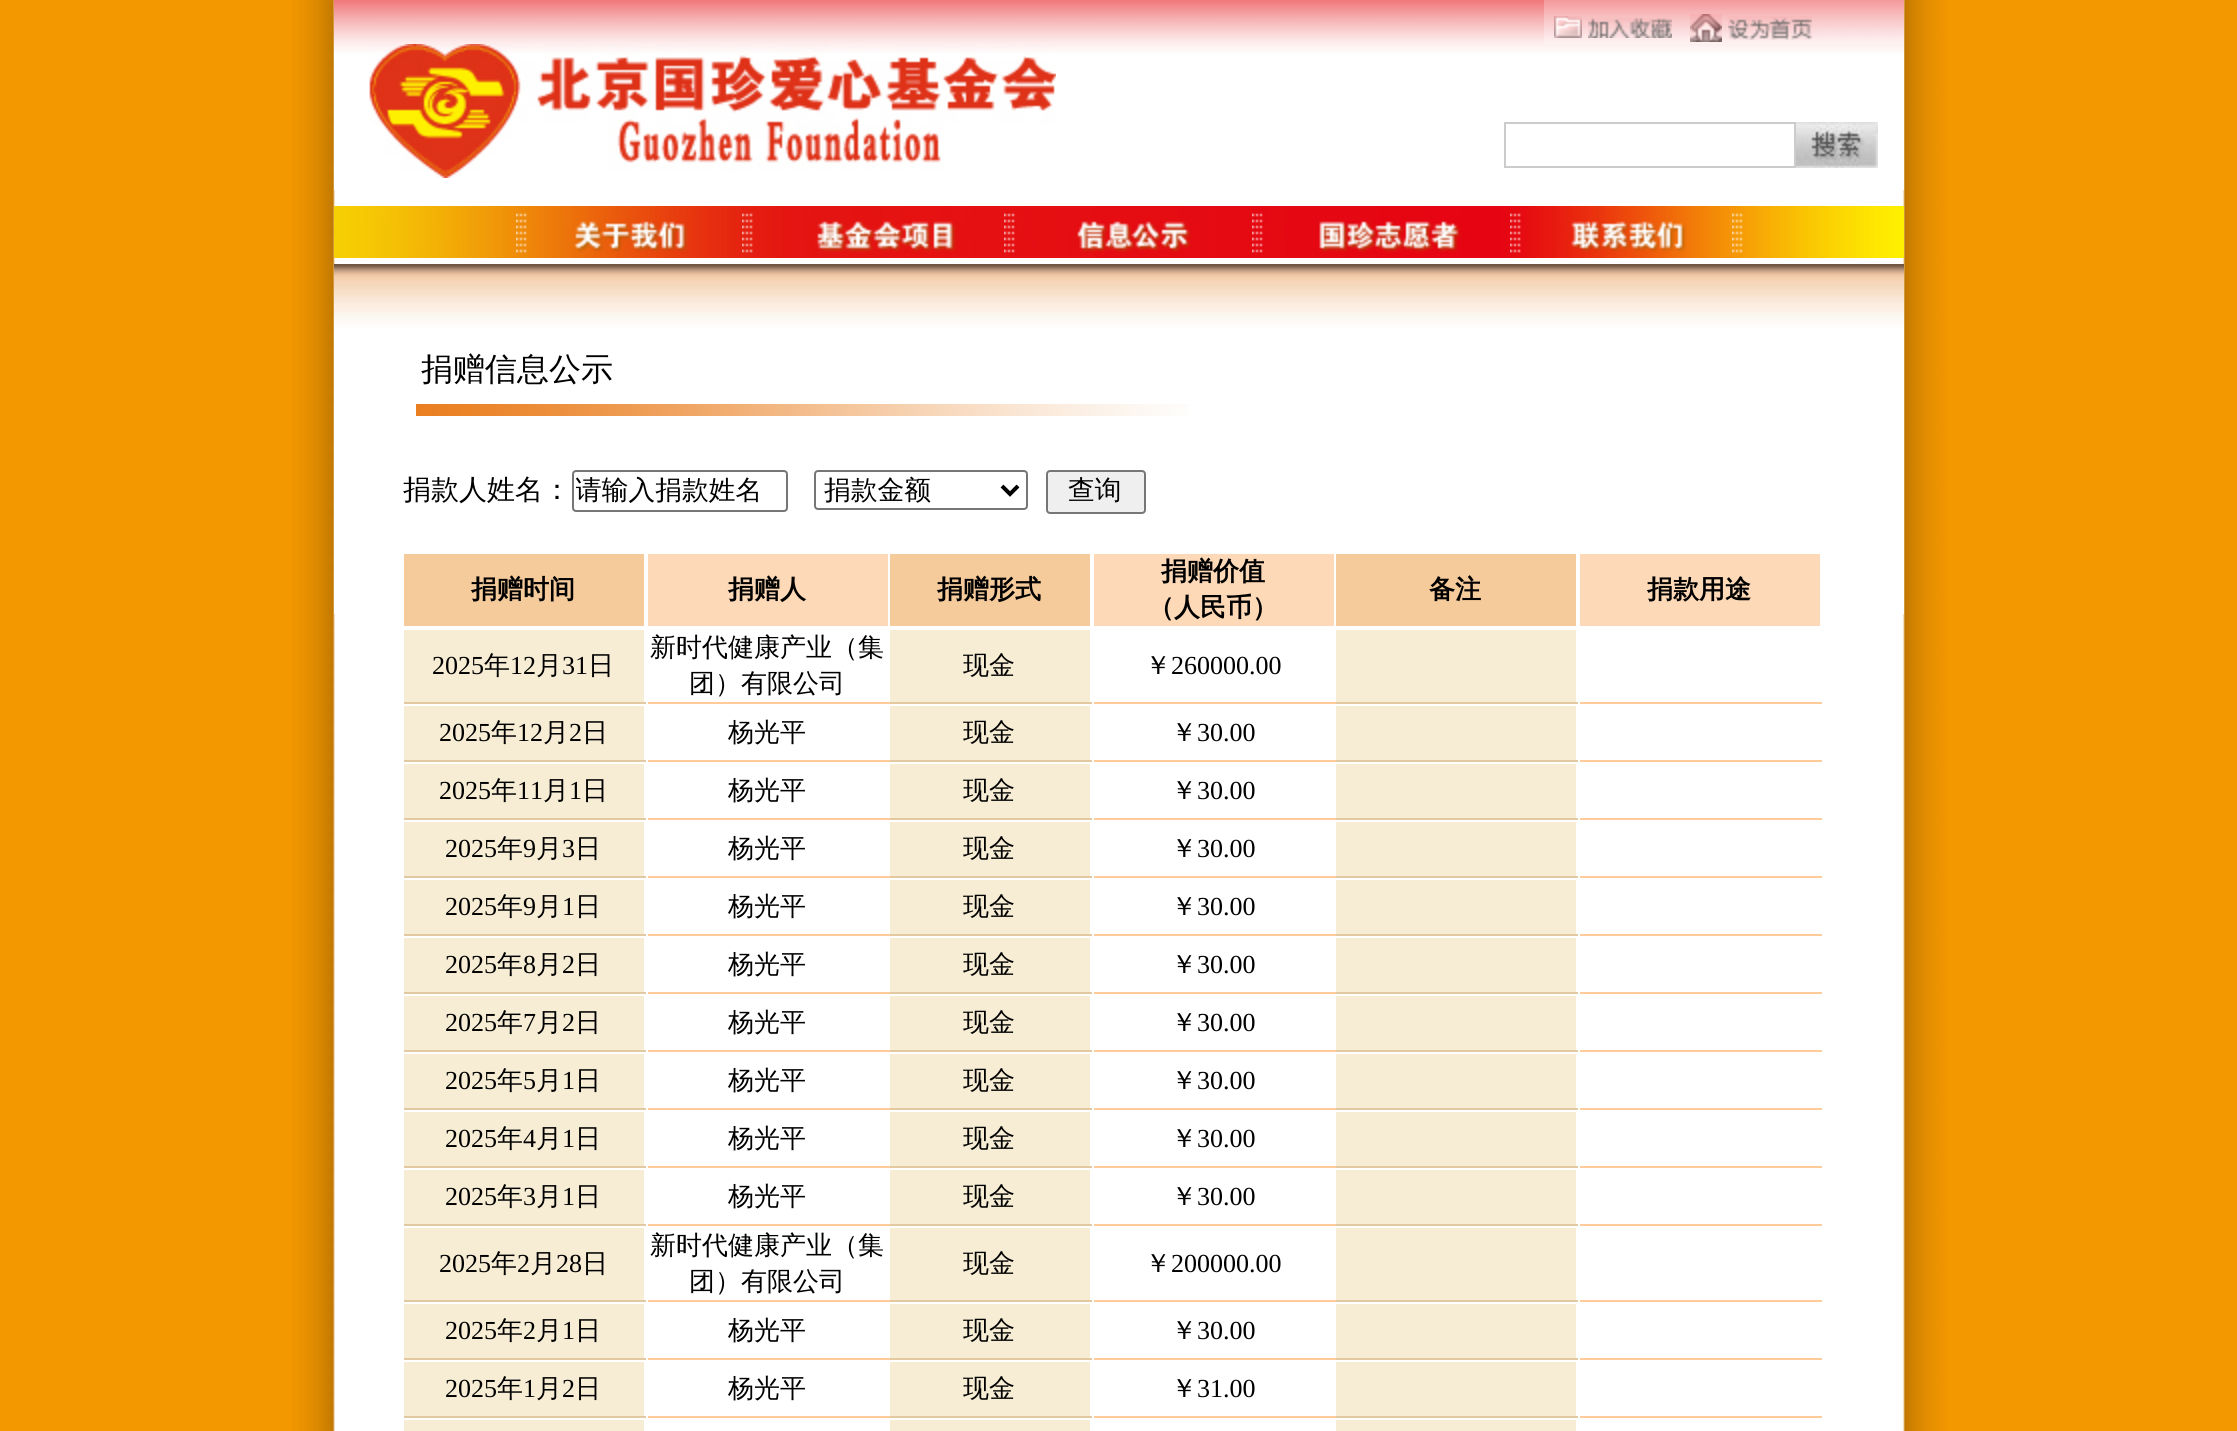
#include <cairo.h>
#include <math.h>
#include <stddef.h>


static void rgb(cairo_t *cr, int r, int g, int b)
{
	cairo_set_source_rgb(cr, r / 255.0, g / 255.0, b / 255.0);
}

static void face(cairo_t *cr, const char *family, double size, int italic, int bold)
{
	cairo_select_font_face(cr, family, italic ? CAIRO_FONT_SLANT_ITALIC : CAIRO_FONT_SLANT_NORMAL,
		bold ? CAIRO_FONT_WEIGHT_BOLD : CAIRO_FONT_WEIGHT_NORMAL);
	cairo_set_font_size(cr, size);
}

static void label(cairo_t *cr, double x, double y, const char *s)
{
	cairo_move_to(cr, x, y);
	cairo_show_text(cr, s);
}

static void rect(cairo_t *cr, double x, double y, double w, double h)
{
	cairo_rectangle(cr, x, y, w, h);
	cairo_fill(cr);
}

static void rrect(cairo_t *cr, double x, double y, double w, double h, double r)
{
	cairo_new_sub_path(cr);
	cairo_arc(cr, x + w - r, y + h - r, r, 0, M_PI / 2);
	cairo_arc(cr, x + r, y + h - r, r, M_PI / 2, M_PI);
	cairo_arc(cr, x + r, y + r, r, M_PI, 1.5 * M_PI);
	cairo_arc(cr, x + w - r, y + r, r, 1.5 * M_PI, 2 * M_PI);
	cairo_close_path(cr);
}

static void image(cairo_t *cr, const char *path, double x, double y, double w, double h)
{
	cairo_surface_t *image = cairo_image_surface_create_from_png(path);
	cairo_save(cr);
	cairo_set_source_surface(cr, image, x, y);
	cairo_rectangle(cr, x, y, w, h);
	cairo_fill(cr);
	cairo_restore(cr);
	cairo_surface_destroy(image);
}

static void draw(cairo_t *cr) {
	rgb(cr, 244, 152, 0);
	cairo_paint(cr);
	image(cr, "image0.png", 292, 0, 1654, 1431);
	image(cr, "image1.png", 334, 0, 1570, 190);
	image(cr, "image2.png", 369, 44, 687, 134);
	image(cr, "image3.png", 1544, 0, 360, 44);
	image(cr, "image4.png", 1554, 16, 28, 22);
	image(cr, "image5.png", 1588, 18, 84, 20);
	image(cr, "image6.png", 1690, 14, 32, 28);
	image(cr, "image7.png", 1728, 16, 84, 24);
	cairo_rectangle(cr, 1505, 123, 290, 44);
	rgb(cr, 204, 204, 204);
	cairo_stroke(cr);
	image(cr, "image8.png", 1796, 122, 82, 46);
	image(cr, "image9.png", 334, 206, 182, 52);
	image(cr, "image10.png", 516, 206, 226, 52);
	image(cr, "image11.png", 742, 206, 262, 52);
	image(cr, "image12.png", 1004, 206, 248, 52);
	image(cr, "image13.png", 1252, 206, 258, 52);
	image(cr, "image14.png", 1510, 206, 222, 52);
	image(cr, "image15.png", 1732, 206, 172, 52);
	image(cr, "image16.png", 334, 264, 1570, 350);
	face(cr, "WenQuanYi Zen Hei Medium", 32, 0, 0);
	rgb(cr, 0, 0, 0);
	label(cr, 421, 380, "捐赠信息公示");
	image(cr, "image17.png", 416, 404, 773, 12);
	face(cr, "WenQuanYi Zen Hei Medium", 28, 0, 0);
	label(cr, 403, 499, "捐款人姓名：");
	rrect(cr, 573, 471, 214, 40, 3);
	rgb(cr, 118, 118, 118);
	cairo_stroke(cr);
	cairo_save(cr);
	cairo_rectangle(cr, 576, 474, 208, 34);
	cairo_clip(cr);
	face(cr, "WenQuanYi Zen Hei Medium", 26.75, 0, 0);
	rgb(cr, 0, 0, 0);
	label(cr, 575, 499, "请输入捐款姓名");
	cairo_restore(cr);
	rrect(cr, 815, 471, 212, 38, 3);
	cairo_stroke(cr);
	cairo_new_path(cr);
	cairo_move_to(cr, 1002, 486);
	cairo_line_to(cr, 1010, 494);
	cairo_line_to(cr, 1018, 486);
	rgb(cr, 0, 0, 0);
	cairo_set_line_width(cr, 4);
	cairo_stroke(cr);
	face(cr, "WenQuanYi Zen Hei Medium", 26.75, 0, 0);
	label(cr, 824, 499, "捐款金额");
	rgb(cr, 239, 239, 239);
	rrect(cr, 1047, 471, 98, 42, 3);
	cairo_fill_preserve(cr);
	rgb(cr, 118, 118, 118);
	cairo_set_line_width(cr, 2);
	cairo_stroke(cr);
	rgb(cr, 0, 0, 0);
	label(cr, 1068, 499, "查询");
	rgb(cr, 245, 203, 155);
	rect(cr, 404, 554, 240, 72);
	face(cr, "WenQuanYi Zen Hei", 26, 0, 1);
	rgb(cr, 0, 0, 0);
	label(cr, 471, 598, "捐赠时间");
	rgb(cr, 253, 217, 183);
	rect(cr, 648, 554, 240, 72);
	rgb(cr, 0, 0, 0);
	label(cr, 728, 598, "捐赠人");
	rgb(cr, 245, 203, 155);
	rect(cr, 890, 554, 200, 72);
	rgb(cr, 0, 0, 0);
	label(cr, 937, 598, "捐赠形式");
	rgb(cr, 253, 217, 183);
	rect(cr, 1094, 554, 240, 72);
	rgb(cr, 0, 0, 0);
	label(cr, 1161, 580, "捐赠价值");
	label(cr, 1148, 616, "（人民币）");
	rgb(cr, 245, 203, 155);
	rect(cr, 1336, 554, 240, 72);
	rgb(cr, 0, 0, 0);
	label(cr, 1429, 598, "备注");
	rgb(cr, 253, 217, 183);
	rect(cr, 1580, 554, 240, 72);
	rgb(cr, 0, 0, 0);
	label(cr, 1647, 598, "捐款用途");
	rgb(cr, 247, 237, 212);
	rect(cr, 404, 630, 240, 72);
	rgb(cr, 226, 201, 161);
	rect(cr, 404, 702, 242, 2);
	face(cr, "Liberation Serif", 26, 0, 0);
	rgb(cr, 0, 0, 0);
	label(cr, 432, 674, "2025");
	face(cr, "WenQuanYi Zen Hei Medium", 26, 0, 0);
	label(cr, 484, 674, "年");
	face(cr, "Liberation Serif", 26, 0, 0);
	label(cr, 510, 674, "12");
	face(cr, "WenQuanYi Zen Hei Medium", 26, 0, 0);
	label(cr, 536, 674, "月");
	face(cr, "Liberation Serif", 26, 0, 0);
	label(cr, 562, 674, "31");
	face(cr, "WenQuanYi Zen Hei Medium", 26, 0, 0);
	label(cr, 588, 674, "日");
	rgb(cr, 255, 204, 153);
	rect(cr, 646, 702, 244, 2);
	rgb(cr, 255, 255, 255);
	rect(cr, 646, 702, 2, 2);
	rgb(cr, 0, 0, 0);
	label(cr, 650, 656, "新时代健康产业（集");
	label(cr, 689, 692, "团）有限公司");
	rgb(cr, 247, 237, 212);
	rect(cr, 890, 630, 200, 72);
	rgb(cr, 226, 201, 161);
	rect(cr, 890, 702, 202, 2);
	rgb(cr, 0, 0, 0);
	label(cr, 963, 674, "现金");
	rgb(cr, 255, 204, 153);
	rect(cr, 1092, 702, 244, 2);
	rgb(cr, 255, 255, 255);
	rect(cr, 1092, 702, 2, 2);
	rgb(cr, 0, 0, 0);
	label(cr, 1145, 674, "￥");
	face(cr, "Liberation Serif", 26, 0, 0);
	label(cr, 1171, 674, "260000.00");
	rgb(cr, 247, 237, 212);
	rect(cr, 1336, 630, 240, 72);
	rgb(cr, 226, 201, 161);
	rect(cr, 1336, 702, 242, 2);
	rgb(cr, 255, 204, 153);
	rect(cr, 1578, 702, 244, 2);
	rgb(cr, 255, 255, 255);
	rect(cr, 1578, 702, 2, 2);
	rgb(cr, 247, 237, 212);
	rect(cr, 404, 706, 240, 54);
	rgb(cr, 226, 201, 161);
	rect(cr, 404, 760, 242, 2);
	rgb(cr, 0, 0, 0);
	label(cr, 439, 741, "2025");
	face(cr, "WenQuanYi Zen Hei Medium", 26, 0, 0);
	label(cr, 491, 741, "年");
	face(cr, "Liberation Serif", 26, 0, 0);
	label(cr, 517, 741, "12");
	face(cr, "WenQuanYi Zen Hei Medium", 26, 0, 0);
	label(cr, 543, 741, "月");
	face(cr, "Liberation Serif", 26, 0, 0);
	label(cr, 569, 741, "2");
	face(cr, "WenQuanYi Zen Hei Medium", 26, 0, 0);
	label(cr, 582, 741, "日");
	rgb(cr, 255, 204, 153);
	rect(cr, 646, 760, 244, 2);
	rgb(cr, 255, 255, 255);
	rect(cr, 646, 760, 2, 2);
	rgb(cr, 0, 0, 0);
	label(cr, 728, 741, "杨光平");
	rgb(cr, 247, 237, 212);
	rect(cr, 890, 706, 200, 54);
	rgb(cr, 226, 201, 161);
	rect(cr, 890, 760, 202, 2);
	rgb(cr, 0, 0, 0);
	label(cr, 963, 741, "现金");
	rgb(cr, 255, 204, 153);
	rect(cr, 1092, 760, 244, 2);
	rgb(cr, 255, 255, 255);
	rect(cr, 1092, 760, 2, 2);
	rgb(cr, 0, 0, 0);
	label(cr, 1171, 741, "￥");
	face(cr, "Liberation Serif", 26, 0, 0);
	label(cr, 1197, 741, "30.00");
	rgb(cr, 247, 237, 212);
	rect(cr, 1336, 706, 240, 54);
	rgb(cr, 226, 201, 161);
	rect(cr, 1336, 760, 242, 2);
	rgb(cr, 255, 204, 153);
	rect(cr, 1578, 760, 244, 2);
	rgb(cr, 255, 255, 255);
	rect(cr, 1578, 760, 2, 2);
	rgb(cr, 247, 237, 212);
	rect(cr, 404, 764, 240, 54);
	rgb(cr, 226, 201, 161);
	rect(cr, 404, 818, 242, 2);
	rgb(cr, 0, 0, 0);
	label(cr, 439, 799, "2025");
	face(cr, "WenQuanYi Zen Hei Medium", 26, 0, 0);
	label(cr, 491, 799, "年");
	face(cr, "Liberation Serif", 26, 0, 0);
	label(cr, 517, 799, "11");
	face(cr, "WenQuanYi Zen Hei Medium", 26, 0, 0);
	label(cr, 543, 799, "月");
	face(cr, "Liberation Serif", 26, 0, 0);
	label(cr, 569, 799, "1");
	face(cr, "WenQuanYi Zen Hei Medium", 26, 0, 0);
	label(cr, 582, 799, "日");
	rgb(cr, 255, 204, 153);
	rect(cr, 646, 818, 244, 2);
	rgb(cr, 255, 255, 255);
	rect(cr, 646, 818, 2, 2);
	rgb(cr, 0, 0, 0);
	label(cr, 728, 799, "杨光平");
	rgb(cr, 247, 237, 212);
	rect(cr, 890, 764, 200, 54);
	rgb(cr, 226, 201, 161);
	rect(cr, 890, 818, 202, 2);
	rgb(cr, 0, 0, 0);
	label(cr, 963, 799, "现金");
	rgb(cr, 255, 204, 153);
	rect(cr, 1092, 818, 244, 2);
	rgb(cr, 255, 255, 255);
	rect(cr, 1092, 818, 2, 2);
	rgb(cr, 0, 0, 0);
	label(cr, 1171, 799, "￥");
	face(cr, "Liberation Serif", 26, 0, 0);
	label(cr, 1197, 799, "30.00");
	rgb(cr, 247, 237, 212);
	rect(cr, 1336, 764, 240, 54);
	rgb(cr, 226, 201, 161);
	rect(cr, 1336, 818, 242, 2);
	rgb(cr, 255, 204, 153);
	rect(cr, 1578, 818, 244, 2);
	rgb(cr, 255, 255, 255);
	rect(cr, 1578, 818, 2, 2);
	rgb(cr, 247, 237, 212);
	rect(cr, 404, 822, 240, 54);
	rgb(cr, 226, 201, 161);
	rect(cr, 404, 876, 242, 2);
	rgb(cr, 0, 0, 0);
	label(cr, 445, 857, "2025");
	face(cr, "WenQuanYi Zen Hei Medium", 26, 0, 0);
	label(cr, 497, 857, "年");
	face(cr, "Liberation Serif", 26, 0, 0);
	label(cr, 523, 857, "9");
	face(cr, "WenQuanYi Zen Hei Medium", 26, 0, 0);
	label(cr, 536, 857, "月");
	face(cr, "Liberation Serif", 26, 0, 0);
	label(cr, 562, 857, "3");
	face(cr, "WenQuanYi Zen Hei Medium", 26, 0, 0);
	label(cr, 575, 857, "日");
	rgb(cr, 255, 204, 153);
	rect(cr, 646, 876, 244, 2);
	rgb(cr, 255, 255, 255);
	rect(cr, 646, 876, 2, 2);
	rgb(cr, 0, 0, 0);
	label(cr, 728, 857, "杨光平");
	rgb(cr, 247, 237, 212);
	rect(cr, 890, 822, 200, 54);
	rgb(cr, 226, 201, 161);
	rect(cr, 890, 876, 202, 2);
	rgb(cr, 0, 0, 0);
	label(cr, 963, 857, "现金");
	rgb(cr, 255, 204, 153);
	rect(cr, 1092, 876, 244, 2);
	rgb(cr, 255, 255, 255);
	rect(cr, 1092, 876, 2, 2);
	rgb(cr, 0, 0, 0);
	label(cr, 1171, 857, "￥");
	face(cr, "Liberation Serif", 26, 0, 0);
	label(cr, 1197, 857, "30.00");
	rgb(cr, 247, 237, 212);
	rect(cr, 1336, 822, 240, 54);
	rgb(cr, 226, 201, 161);
	rect(cr, 1336, 876, 242, 2);
	rgb(cr, 255, 204, 153);
	rect(cr, 1578, 876, 244, 2);
	rgb(cr, 255, 255, 255);
	rect(cr, 1578, 876, 2, 2);
	rgb(cr, 247, 237, 212);
	rect(cr, 404, 880, 240, 54);
	rgb(cr, 226, 201, 161);
	rect(cr, 404, 934, 242, 2);
	rgb(cr, 0, 0, 0);
	label(cr, 445, 915, "2025");
	face(cr, "WenQuanYi Zen Hei Medium", 26, 0, 0);
	label(cr, 497, 915, "年");
	face(cr, "Liberation Serif", 26, 0, 0);
	label(cr, 523, 915, "9");
	face(cr, "WenQuanYi Zen Hei Medium", 26, 0, 0);
	label(cr, 536, 915, "月");
	face(cr, "Liberation Serif", 26, 0, 0);
	label(cr, 562, 915, "1");
	face(cr, "WenQuanYi Zen Hei Medium", 26, 0, 0);
	label(cr, 575, 915, "日");
	rgb(cr, 255, 204, 153);
	rect(cr, 646, 934, 244, 2);
	rgb(cr, 255, 255, 255);
	rect(cr, 646, 934, 2, 2);
	rgb(cr, 0, 0, 0);
	label(cr, 728, 915, "杨光平");
	rgb(cr, 247, 237, 212);
	rect(cr, 890, 880, 200, 54);
	rgb(cr, 226, 201, 161);
	rect(cr, 890, 934, 202, 2);
	rgb(cr, 0, 0, 0);
	label(cr, 963, 915, "现金");
	rgb(cr, 255, 204, 153);
	rect(cr, 1092, 934, 244, 2);
	rgb(cr, 255, 255, 255);
	rect(cr, 1092, 934, 2, 2);
	rgb(cr, 0, 0, 0);
	label(cr, 1171, 915, "￥");
	face(cr, "Liberation Serif", 26, 0, 0);
	label(cr, 1197, 915, "30.00");
	rgb(cr, 247, 237, 212);
	rect(cr, 1336, 880, 240, 54);
	rgb(cr, 226, 201, 161);
	rect(cr, 1336, 934, 242, 2);
	rgb(cr, 255, 204, 153);
	rect(cr, 1578, 934, 244, 2);
	rgb(cr, 255, 255, 255);
	rect(cr, 1578, 934, 2, 2);
	rgb(cr, 247, 237, 212);
	rect(cr, 404, 938, 240, 54);
	rgb(cr, 226, 201, 161);
	rect(cr, 404, 992, 242, 2);
	rgb(cr, 0, 0, 0);
	label(cr, 445, 973, "2025");
	face(cr, "WenQuanYi Zen Hei Medium", 26, 0, 0);
	label(cr, 497, 973, "年");
	face(cr, "Liberation Serif", 26, 0, 0);
	label(cr, 523, 973, "8");
	face(cr, "WenQuanYi Zen Hei Medium", 26, 0, 0);
	label(cr, 536, 973, "月");
	face(cr, "Liberation Serif", 26, 0, 0);
	label(cr, 562, 973, "2");
	face(cr, "WenQuanYi Zen Hei Medium", 26, 0, 0);
	label(cr, 575, 973, "日");
	rgb(cr, 255, 204, 153);
	rect(cr, 646, 992, 244, 2);
	rgb(cr, 255, 255, 255);
	rect(cr, 646, 992, 2, 2);
	rgb(cr, 0, 0, 0);
	label(cr, 728, 973, "杨光平");
	rgb(cr, 247, 237, 212);
	rect(cr, 890, 938, 200, 54);
	rgb(cr, 226, 201, 161);
	rect(cr, 890, 992, 202, 2);
	rgb(cr, 0, 0, 0);
	label(cr, 963, 973, "现金");
	rgb(cr, 255, 204, 153);
	rect(cr, 1092, 992, 244, 2);
	rgb(cr, 255, 255, 255);
	rect(cr, 1092, 992, 2, 2);
	rgb(cr, 0, 0, 0);
	label(cr, 1171, 973, "￥");
	face(cr, "Liberation Serif", 26, 0, 0);
	label(cr, 1197, 973, "30.00");
	rgb(cr, 247, 237, 212);
	rect(cr, 1336, 938, 240, 54);
	rgb(cr, 226, 201, 161);
	rect(cr, 1336, 992, 242, 2);
	rgb(cr, 255, 204, 153);
	rect(cr, 1578, 992, 244, 2);
	rgb(cr, 255, 255, 255);
	rect(cr, 1578, 992, 2, 2);
	rgb(cr, 247, 237, 212);
	rect(cr, 404, 996, 240, 54);
	rgb(cr, 226, 201, 161);
	rect(cr, 404, 1050, 242, 2);
	rgb(cr, 0, 0, 0);
	label(cr, 445, 1031, "2025");
	face(cr, "WenQuanYi Zen Hei Medium", 26, 0, 0);
	label(cr, 497, 1031, "年");
	face(cr, "Liberation Serif", 26, 0, 0);
	label(cr, 523, 1031, "7");
	face(cr, "WenQuanYi Zen Hei Medium", 26, 0, 0);
	label(cr, 536, 1031, "月");
	face(cr, "Liberation Serif", 26, 0, 0);
	label(cr, 562, 1031, "2");
	face(cr, "WenQuanYi Zen Hei Medium", 26, 0, 0);
	label(cr, 575, 1031, "日");
	rgb(cr, 255, 204, 153);
	rect(cr, 646, 1050, 244, 2);
	rgb(cr, 255, 255, 255);
	rect(cr, 646, 1050, 2, 2);
	rgb(cr, 0, 0, 0);
	label(cr, 728, 1031, "杨光平");
	rgb(cr, 247, 237, 212);
	rect(cr, 890, 996, 200, 54);
	rgb(cr, 226, 201, 161);
	rect(cr, 890, 1050, 202, 2);
	rgb(cr, 0, 0, 0);
	label(cr, 963, 1031, "现金");
	rgb(cr, 255, 204, 153);
	rect(cr, 1092, 1050, 244, 2);
	rgb(cr, 255, 255, 255);
	rect(cr, 1092, 1050, 2, 2);
	rgb(cr, 0, 0, 0);
	label(cr, 1171, 1031, "￥");
	face(cr, "Liberation Serif", 26, 0, 0);
	label(cr, 1197, 1031, "30.00");
	rgb(cr, 247, 237, 212);
	rect(cr, 1336, 996, 240, 54);
	rgb(cr, 226, 201, 161);
	rect(cr, 1336, 1050, 242, 2);
	rgb(cr, 255, 204, 153);
	rect(cr, 1578, 1050, 244, 2);
	rgb(cr, 255, 255, 255);
	rect(cr, 1578, 1050, 2, 2);
	rgb(cr, 247, 237, 212);
	rect(cr, 404, 1054, 240, 54);
	rgb(cr, 226, 201, 161);
	rect(cr, 404, 1108, 242, 2);
	rgb(cr, 0, 0, 0);
	label(cr, 445, 1089, "2025");
	face(cr, "WenQuanYi Zen Hei Medium", 26, 0, 0);
	label(cr, 497, 1089, "年");
	face(cr, "Liberation Serif", 26, 0, 0);
	label(cr, 523, 1089, "5");
	face(cr, "WenQuanYi Zen Hei Medium", 26, 0, 0);
	label(cr, 536, 1089, "月");
	face(cr, "Liberation Serif", 26, 0, 0);
	label(cr, 562, 1089, "1");
	face(cr, "WenQuanYi Zen Hei Medium", 26, 0, 0);
	label(cr, 575, 1089, "日");
	rgb(cr, 255, 204, 153);
	rect(cr, 646, 1108, 244, 2);
	rgb(cr, 255, 255, 255);
	rect(cr, 646, 1108, 2, 2);
	rgb(cr, 0, 0, 0);
	label(cr, 728, 1089, "杨光平");
	rgb(cr, 247, 237, 212);
	rect(cr, 890, 1054, 200, 54);
	rgb(cr, 226, 201, 161);
	rect(cr, 890, 1108, 202, 2);
	rgb(cr, 0, 0, 0);
	label(cr, 963, 1089, "现金");
	rgb(cr, 255, 204, 153);
	rect(cr, 1092, 1108, 244, 2);
	rgb(cr, 255, 255, 255);
	rect(cr, 1092, 1108, 2, 2);
	rgb(cr, 0, 0, 0);
	label(cr, 1171, 1089, "￥");
	face(cr, "Liberation Serif", 26, 0, 0);
	label(cr, 1197, 1089, "30.00");
	rgb(cr, 247, 237, 212);
	rect(cr, 1336, 1054, 240, 54);
	rgb(cr, 226, 201, 161);
	rect(cr, 1336, 1108, 242, 2);
	rgb(cr, 255, 204, 153);
	rect(cr, 1578, 1108, 244, 2);
	rgb(cr, 255, 255, 255);
	rect(cr, 1578, 1108, 2, 2);
	rgb(cr, 247, 237, 212);
	rect(cr, 404, 1112, 240, 54);
	rgb(cr, 226, 201, 161);
	rect(cr, 404, 1166, 242, 2);
	rgb(cr, 0, 0, 0);
	label(cr, 445, 1147, "2025");
	face(cr, "WenQuanYi Zen Hei Medium", 26, 0, 0);
	label(cr, 497, 1147, "年");
	face(cr, "Liberation Serif", 26, 0, 0);
	label(cr, 523, 1147, "4");
	face(cr, "WenQuanYi Zen Hei Medium", 26, 0, 0);
	label(cr, 536, 1147, "月");
	face(cr, "Liberation Serif", 26, 0, 0);
	label(cr, 562, 1147, "1");
	face(cr, "WenQuanYi Zen Hei Medium", 26, 0, 0);
	label(cr, 575, 1147, "日");
	rgb(cr, 255, 204, 153);
	rect(cr, 646, 1166, 244, 2);
	rgb(cr, 255, 255, 255);
	rect(cr, 646, 1166, 2, 2);
	rgb(cr, 0, 0, 0);
	label(cr, 728, 1147, "杨光平");
	rgb(cr, 247, 237, 212);
	rect(cr, 890, 1112, 200, 54);
	rgb(cr, 226, 201, 161);
	rect(cr, 890, 1166, 202, 2);
	rgb(cr, 0, 0, 0);
	label(cr, 963, 1147, "现金");
	rgb(cr, 255, 204, 153);
	rect(cr, 1092, 1166, 244, 2);
	rgb(cr, 255, 255, 255);
	rect(cr, 1092, 1166, 2, 2);
	rgb(cr, 0, 0, 0);
	label(cr, 1171, 1147, "￥");
	face(cr, "Liberation Serif", 26, 0, 0);
	label(cr, 1197, 1147, "30.00");
	rgb(cr, 247, 237, 212);
	rect(cr, 1336, 1112, 240, 54);
	rgb(cr, 226, 201, 161);
	rect(cr, 1336, 1166, 242, 2);
	rgb(cr, 255, 204, 153);
	rect(cr, 1578, 1166, 244, 2);
	rgb(cr, 255, 255, 255);
	rect(cr, 1578, 1166, 2, 2);
	rgb(cr, 247, 237, 212);
	rect(cr, 404, 1170, 240, 54);
	rgb(cr, 226, 201, 161);
	rect(cr, 404, 1224, 242, 2);
	rgb(cr, 0, 0, 0);
	label(cr, 445, 1205, "2025");
	face(cr, "WenQuanYi Zen Hei Medium", 26, 0, 0);
	label(cr, 497, 1205, "年");
	face(cr, "Liberation Serif", 26, 0, 0);
	label(cr, 523, 1205, "3");
	face(cr, "WenQuanYi Zen Hei Medium", 26, 0, 0);
	label(cr, 536, 1205, "月");
	face(cr, "Liberation Serif", 26, 0, 0);
	label(cr, 562, 1205, "1");
	face(cr, "WenQuanYi Zen Hei Medium", 26, 0, 0);
	label(cr, 575, 1205, "日");
	rgb(cr, 255, 204, 153);
	rect(cr, 646, 1224, 244, 2);
	rgb(cr, 255, 255, 255);
	rect(cr, 646, 1224, 2, 2);
	rgb(cr, 0, 0, 0);
	label(cr, 728, 1205, "杨光平");
	rgb(cr, 247, 237, 212);
	rect(cr, 890, 1170, 200, 54);
	rgb(cr, 226, 201, 161);
	rect(cr, 890, 1224, 202, 2);
	rgb(cr, 0, 0, 0);
	label(cr, 963, 1205, "现金");
	rgb(cr, 255, 204, 153);
	rect(cr, 1092, 1224, 244, 2);
	rgb(cr, 255, 255, 255);
	rect(cr, 1092, 1224, 2, 2);
	rgb(cr, 0, 0, 0);
	label(cr, 1171, 1205, "￥");
	face(cr, "Liberation Serif", 26, 0, 0);
	label(cr, 1197, 1205, "30.00");
	rgb(cr, 247, 237, 212);
	rect(cr, 1336, 1170, 240, 54);
	rgb(cr, 226, 201, 161);
	rect(cr, 1336, 1224, 242, 2);
	rgb(cr, 255, 204, 153);
	rect(cr, 1578, 1224, 244, 2);
	rgb(cr, 255, 255, 255);
	rect(cr, 1578, 1224, 2, 2);
	rgb(cr, 247, 237, 212);
	rect(cr, 404, 1228, 240, 72);
	rgb(cr, 226, 201, 161);
	rect(cr, 404, 1300, 242, 2);
	rgb(cr, 0, 0, 0);
	label(cr, 439, 1272, "2025");
	face(cr, "WenQuanYi Zen Hei Medium", 26, 0, 0);
	label(cr, 491, 1272, "年");
	face(cr, "Liberation Serif", 26, 0, 0);
	label(cr, 517, 1272, "2");
	face(cr, "WenQuanYi Zen Hei Medium", 26, 0, 0);
	label(cr, 530, 1272, "月");
	face(cr, "Liberation Serif", 26, 0, 0);
	label(cr, 556, 1272, "28");
	face(cr, "WenQuanYi Zen Hei Medium", 26, 0, 0);
	label(cr, 582, 1272, "日");
	rgb(cr, 255, 204, 153);
	rect(cr, 646, 1300, 244, 2);
	rgb(cr, 255, 255, 255);
	rect(cr, 646, 1300, 2, 2);
	rgb(cr, 0, 0, 0);
	label(cr, 650, 1254, "新时代健康产业（集");
	label(cr, 689, 1290, "团）有限公司");
	rgb(cr, 247, 237, 212);
	rect(cr, 890, 1228, 200, 72);
	rgb(cr, 226, 201, 161);
	rect(cr, 890, 1300, 202, 2);
	rgb(cr, 0, 0, 0);
	label(cr, 963, 1272, "现金");
	rgb(cr, 255, 204, 153);
	rect(cr, 1092, 1300, 244, 2);
	rgb(cr, 255, 255, 255);
	rect(cr, 1092, 1300, 2, 2);
	rgb(cr, 0, 0, 0);
	label(cr, 1145, 1272, "￥");
	face(cr, "Liberation Serif", 26, 0, 0);
	label(cr, 1171, 1272, "200000.00");
	rgb(cr, 247, 237, 212);
	rect(cr, 1336, 1228, 240, 72);
	rgb(cr, 226, 201, 161);
	rect(cr, 1336, 1300, 242, 2);
	rgb(cr, 255, 204, 153);
	rect(cr, 1578, 1300, 244, 2);
	rgb(cr, 255, 255, 255);
	rect(cr, 1578, 1300, 2, 2);
	rgb(cr, 247, 237, 212);
	rect(cr, 404, 1304, 240, 54);
	rgb(cr, 226, 201, 161);
	rect(cr, 404, 1358, 242, 2);
	rgb(cr, 0, 0, 0);
	label(cr, 445, 1339, "2025");
	face(cr, "WenQuanYi Zen Hei Medium", 26, 0, 0);
	label(cr, 497, 1339, "年");
	face(cr, "Liberation Serif", 26, 0, 0);
	label(cr, 523, 1339, "2");
	face(cr, "WenQuanYi Zen Hei Medium", 26, 0, 0);
	label(cr, 536, 1339, "月");
	face(cr, "Liberation Serif", 26, 0, 0);
	label(cr, 562, 1339, "1");
	face(cr, "WenQuanYi Zen Hei Medium", 26, 0, 0);
	label(cr, 575, 1339, "日");
	rgb(cr, 255, 204, 153);
	rect(cr, 646, 1358, 244, 2);
	rgb(cr, 255, 255, 255);
	rect(cr, 646, 1358, 2, 2);
	rgb(cr, 0, 0, 0);
	label(cr, 728, 1339, "杨光平");
	rgb(cr, 247, 237, 212);
	rect(cr, 890, 1304, 200, 54);
	rgb(cr, 226, 201, 161);
	rect(cr, 890, 1358, 202, 2);
	rgb(cr, 0, 0, 0);
	label(cr, 963, 1339, "现金");
	rgb(cr, 255, 204, 153);
	rect(cr, 1092, 1358, 244, 2);
	rgb(cr, 255, 255, 255);
	rect(cr, 1092, 1358, 2, 2);
	rgb(cr, 0, 0, 0);
	label(cr, 1171, 1339, "￥");
	face(cr, "Liberation Serif", 26, 0, 0);
	label(cr, 1197, 1339, "30.00");
	rgb(cr, 247, 237, 212);
	rect(cr, 1336, 1304, 240, 54);
	rgb(cr, 226, 201, 161);
	rect(cr, 1336, 1358, 242, 2);
	rgb(cr, 255, 204, 153);
	rect(cr, 1578, 1358, 244, 2);
	rgb(cr, 255, 255, 255);
	rect(cr, 1578, 1358, 2, 2);
	rgb(cr, 247, 237, 212);
	rect(cr, 404, 1362, 240, 54);
	rgb(cr, 226, 201, 161);
	rect(cr, 404, 1416, 242, 2);
	rgb(cr, 0, 0, 0);
	label(cr, 445, 1397, "2025");
	face(cr, "WenQuanYi Zen Hei Medium", 26, 0, 0);
	label(cr, 497, 1397, "年");
	face(cr, "Liberation Serif", 26, 0, 0);
	label(cr, 523, 1397, "1");
	face(cr, "WenQuanYi Zen Hei Medium", 26, 0, 0);
	label(cr, 536, 1397, "月");
	face(cr, "Liberation Serif", 26, 0, 0);
	label(cr, 562, 1397, "2");
	face(cr, "WenQuanYi Zen Hei Medium", 26, 0, 0);
	label(cr, 575, 1397, "日");
	rgb(cr, 255, 204, 153);
	rect(cr, 646, 1416, 244, 2);
	rgb(cr, 255, 255, 255);
	rect(cr, 646, 1416, 2, 2);
	rgb(cr, 0, 0, 0);
	label(cr, 728, 1397, "杨光平");
	rgb(cr, 247, 237, 212);
	rect(cr, 890, 1362, 200, 54);
	rgb(cr, 226, 201, 161);
	rect(cr, 890, 1416, 202, 2);
	rgb(cr, 0, 0, 0);
	label(cr, 963, 1397, "现金");
	rgb(cr, 255, 204, 153);
	rect(cr, 1092, 1416, 244, 2);
	rgb(cr, 255, 255, 255);
	rect(cr, 1092, 1416, 2, 2);
	rgb(cr, 0, 0, 0);
	label(cr, 1171, 1397, "￥");
	face(cr, "Liberation Serif", 26, 0, 0);
	label(cr, 1197, 1397, "31.00");
	rgb(cr, 247, 237, 212);
	rect(cr, 1336, 1362, 240, 54);
	rgb(cr, 226, 201, 161);
	rect(cr, 1336, 1416, 242, 2);
	rgb(cr, 255, 204, 153);
	rect(cr, 1578, 1416, 244, 2);
	rgb(cr, 255, 255, 255);
	rect(cr, 1578, 1416, 2, 2);
	rgb(cr, 247, 237, 212);
	rect(cr, 404, 1420, 240, 11);
	rect(cr, 890, 1420, 200, 11);
	rect(cr, 1336, 1420, 240, 11);
}

int main(void) {
	cairo_surface_t *surface = cairo_image_surface_create(CAIRO_FORMAT_RGB24, 2237, 1431);
	cairo_t *cr = cairo_create(surface);
	cairo_font_options_t *options = cairo_font_options_create();
	cairo_font_options_set_hint_metrics(options, CAIRO_HINT_METRICS_OFF);
	cairo_font_options_set_hint_style(options, CAIRO_HINT_STYLE_NONE);
	cairo_set_font_options(cr, options);
	cairo_set_miter_limit(cr, 4);
	draw(cr);
	cairo_surface_write_to_png(surface, "render.png");
	cairo_font_options_destroy(options);
	cairo_destroy(cr);
	cairo_surface_destroy(surface);
	return 0;
}
